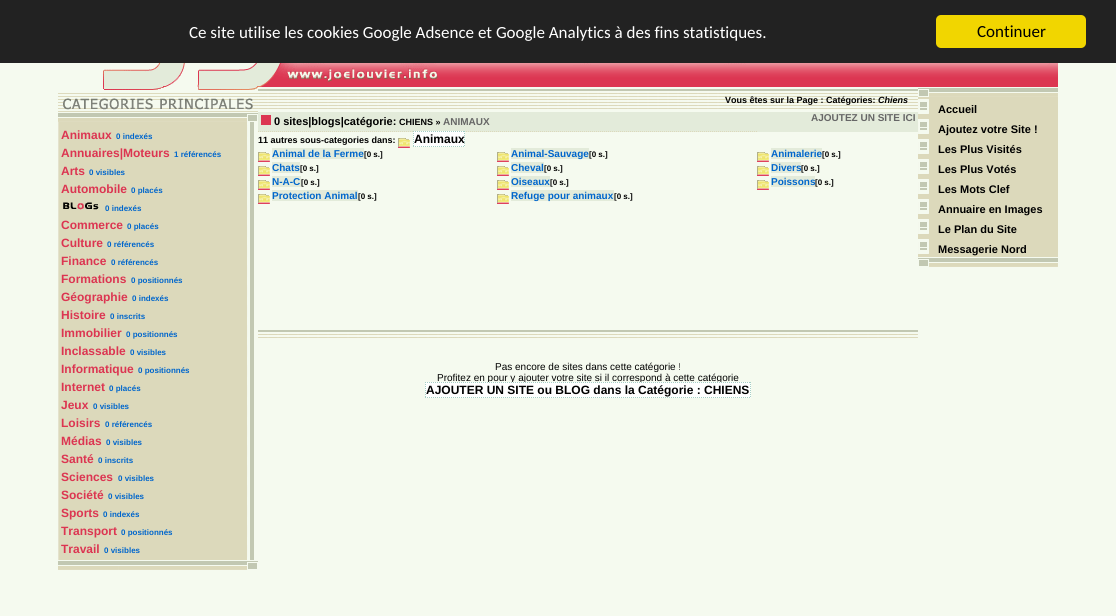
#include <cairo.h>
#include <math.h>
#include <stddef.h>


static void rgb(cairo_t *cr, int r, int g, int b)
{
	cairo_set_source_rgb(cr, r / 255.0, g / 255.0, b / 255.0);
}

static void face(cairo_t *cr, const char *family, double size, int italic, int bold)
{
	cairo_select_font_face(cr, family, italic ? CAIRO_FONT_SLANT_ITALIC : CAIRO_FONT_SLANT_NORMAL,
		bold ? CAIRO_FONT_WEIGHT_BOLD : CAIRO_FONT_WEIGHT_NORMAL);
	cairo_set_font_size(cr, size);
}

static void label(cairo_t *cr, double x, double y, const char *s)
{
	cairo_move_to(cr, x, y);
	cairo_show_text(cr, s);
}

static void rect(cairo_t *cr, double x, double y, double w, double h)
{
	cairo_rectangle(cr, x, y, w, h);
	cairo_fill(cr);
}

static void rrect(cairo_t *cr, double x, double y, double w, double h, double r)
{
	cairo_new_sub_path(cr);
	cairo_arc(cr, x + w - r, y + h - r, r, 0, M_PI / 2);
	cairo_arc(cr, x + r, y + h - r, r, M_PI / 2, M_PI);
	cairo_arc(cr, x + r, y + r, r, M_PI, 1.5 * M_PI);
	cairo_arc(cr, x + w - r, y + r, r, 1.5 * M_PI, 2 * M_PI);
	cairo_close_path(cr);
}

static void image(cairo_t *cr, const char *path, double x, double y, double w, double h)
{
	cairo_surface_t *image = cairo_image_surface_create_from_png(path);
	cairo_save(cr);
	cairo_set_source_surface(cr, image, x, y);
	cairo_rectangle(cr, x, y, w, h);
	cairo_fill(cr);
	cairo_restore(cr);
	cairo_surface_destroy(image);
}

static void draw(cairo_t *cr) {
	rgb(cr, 245, 250, 239);
	cairo_paint(cr);
	rgb(cr, 34, 34, 34);
	rect(cr, 0, 0, 1116, 63);
	face(cr, "Carlito", 17, 0, 0);
	rgb(cr, 255, 255, 255);
	label(cr, 189, 38, "Ce site utilise les cookies Google Adsence et Google Analytics à des fins statistiques.");
	rgb(cr, 241, 214, 0);
	rrect(cr, 936, 15, 150, 33, 5);
	cairo_fill(cr);
	rgb(cr, 0, 0, 0);
	label(cr, 977, 37, "Continuer");
	image(cr, "image0.png", 58, 63, 1000, 24);
	image(cr, "image1.png", 58, 87, 200, 25);
	image(cr, "image2.png", 258, 89, 660, 20);
	face(cr, "Liberation Sans", 9, 0, 1);
	label(cr, 725, 103, "Vous êtes sur la Page : Catégories:");
	face(cr, "Liberation Sans", 9, 1, 1);
	label(cr, 878, 103, "Chiens");
	rgb(cr, 220, 217, 187);
	rect(cr, 918, 97, 140, 160);
	image(cr, "image3.png", 918, 87, 140, 10);
	image(cr, "image4.png", 918, 99, 11, 15);
	face(cr, "Liberation Sans", 11, 0, 1);
	rgb(cr, 0, 0, 0);
	label(cr, 938, 113, "Accueil");
	image(cr, "image4.png", 918, 119, 11, 15);
	label(cr, 938, 133, "Ajoutez votre Site !");
	image(cr, "image4.png", 918, 139, 11, 15);
	label(cr, 938, 153, "Les Plus Visités");
	image(cr, "image4.png", 918, 159, 11, 15);
	label(cr, 938, 173, "Les Plus Votés");
	image(cr, "image4.png", 918, 179, 11, 15);
	label(cr, 938, 193, "Les Mots Clef");
	image(cr, "image4.png", 918, 199, 11, 15);
	label(cr, 938, 213, "Annuaire en Images");
	image(cr, "image4.png", 918, 219, 11, 15);
	label(cr, 938, 233, "Le Plan du Site");
	image(cr, "image4.png", 918, 239, 11, 15);
	label(cr, 938, 253, "Messagerie Nord");
	image(cr, "image5.png", 918, 258, 140, 9);
	image(cr, "image6.png", 58, 113, 200, 9);
	image(cr, "image7.png", 58, 122, 196, 438);
	face(cr, "Liberation Sans", 12, 0, 1);
	rgb(cr, 220, 53, 81);
	label(cr, 61, 139, "Animaux");
	face(cr, "Liberation Sans", 8, 0, 1);
	rgb(cr, 0, 102, 204);
	label(cr, 116, 139, "0 indexés");
	face(cr, "Liberation Sans", 12, 0, 1);
	rgb(cr, 220, 53, 81);
	label(cr, 61, 157, "Annuaires|Moteurs");
	face(cr, "Liberation Sans", 8, 0, 1);
	rgb(cr, 0, 102, 204);
	label(cr, 174, 157, "1 référencés");
	face(cr, "Liberation Sans", 12, 0, 1);
	rgb(cr, 220, 53, 81);
	label(cr, 61, 175, "Arts");
	face(cr, "Liberation Sans", 8, 0, 1);
	rgb(cr, 0, 102, 204);
	label(cr, 89, 175, "0 visibles");
	face(cr, "Liberation Sans", 12, 0, 1);
	rgb(cr, 220, 53, 81);
	label(cr, 61, 193, "Automobile");
	face(cr, "Liberation Sans", 8, 0, 1);
	rgb(cr, 0, 102, 204);
	label(cr, 131, 193, "0 placés");
	image(cr, "image8.png", 63, 202, 36, 8);
	label(cr, 105, 211, "0 indexés");
	face(cr, "Liberation Sans", 12, 0, 1);
	rgb(cr, 220, 53, 81);
	label(cr, 61, 229, "Commerce");
	face(cr, "Liberation Sans", 8, 0, 1);
	rgb(cr, 0, 102, 204);
	label(cr, 127, 229, "0 placés");
	face(cr, "Liberation Sans", 12, 0, 1);
	rgb(cr, 220, 53, 81);
	label(cr, 61, 247, "Culture");
	face(cr, "Liberation Sans", 8, 0, 1);
	rgb(cr, 0, 102, 204);
	label(cr, 107, 247, "0 référencés");
	face(cr, "Liberation Sans", 12, 0, 1);
	rgb(cr, 220, 53, 81);
	label(cr, 61, 265, "Finance");
	face(cr, "Liberation Sans", 8, 0, 1);
	rgb(cr, 0, 102, 204);
	label(cr, 111, 265, "0 référencés");
	face(cr, "Liberation Sans", 12, 0, 1);
	rgb(cr, 220, 53, 81);
	label(cr, 61, 283, "Formations");
	face(cr, "Liberation Sans", 8, 0, 1);
	rgb(cr, 0, 102, 204);
	label(cr, 131, 283, "0 positionnés");
	face(cr, "Liberation Sans", 12, 0, 1);
	rgb(cr, 220, 53, 81);
	label(cr, 61, 301, "Géographie");
	face(cr, "Liberation Sans", 8, 0, 1);
	rgb(cr, 0, 102, 204);
	label(cr, 132, 301, "0 indexés");
	face(cr, "Liberation Sans", 12, 0, 1);
	rgb(cr, 220, 53, 81);
	label(cr, 61, 319, "Histoire");
	face(cr, "Liberation Sans", 8, 0, 1);
	rgb(cr, 0, 102, 204);
	label(cr, 110, 319, "0 inscrits");
	face(cr, "Liberation Sans", 12, 0, 1);
	rgb(cr, 220, 53, 81);
	label(cr, 61, 337, "Immobilier");
	face(cr, "Liberation Sans", 8, 0, 1);
	rgb(cr, 0, 102, 204);
	label(cr, 126, 337, "0 positionnés");
	face(cr, "Liberation Sans", 12, 0, 1);
	rgb(cr, 220, 53, 81);
	label(cr, 61, 355, "Inclassable");
	face(cr, "Liberation Sans", 8, 0, 1);
	rgb(cr, 0, 102, 204);
	label(cr, 130, 355, "0 visibles");
	face(cr, "Liberation Sans", 12, 0, 1);
	rgb(cr, 220, 53, 81);
	label(cr, 61, 373, "Informatique");
	face(cr, "Liberation Sans", 8, 0, 1);
	rgb(cr, 0, 102, 204);
	label(cr, 138, 373, "0 positionnés");
	face(cr, "Liberation Sans", 12, 0, 1);
	rgb(cr, 220, 53, 81);
	label(cr, 61, 391, "Internet");
	face(cr, "Liberation Sans", 8, 0, 1);
	rgb(cr, 0, 102, 204);
	label(cr, 109, 391, "0 placés");
	face(cr, "Liberation Sans", 12, 0, 1);
	rgb(cr, 220, 53, 81);
	label(cr, 61, 409, "Jeux");
	face(cr, "Liberation Sans", 8, 0, 1);
	rgb(cr, 0, 102, 204);
	label(cr, 93, 409, "0 visibles");
	face(cr, "Liberation Sans", 12, 0, 1);
	rgb(cr, 220, 53, 81);
	label(cr, 61, 427, "Loisirs");
	face(cr, "Liberation Sans", 8, 0, 1);
	rgb(cr, 0, 102, 204);
	label(cr, 105, 427, "0 référencés");
	face(cr, "Liberation Sans", 12, 0, 1);
	rgb(cr, 220, 53, 81);
	label(cr, 61, 445, "Médias");
	face(cr, "Liberation Sans", 8, 0, 1);
	rgb(cr, 0, 102, 204);
	label(cr, 106, 445, "0 visibles");
	face(cr, "Liberation Sans", 12, 0, 1);
	rgb(cr, 220, 53, 81);
	label(cr, 61, 463, "Santé");
	face(cr, "Liberation Sans", 8, 0, 1);
	rgb(cr, 0, 102, 204);
	label(cr, 98, 463, "0 inscrits");
	face(cr, "Liberation Sans", 12, 0, 1);
	rgb(cr, 220, 53, 81);
	label(cr, 61, 481, "Sciences");
	face(cr, "Liberation Sans", 8, 0, 1);
	rgb(cr, 0, 102, 204);
	label(cr, 118, 481, "0 visibles");
	face(cr, "Liberation Sans", 12, 0, 1);
	rgb(cr, 220, 53, 81);
	label(cr, 61, 499, "Société");
	face(cr, "Liberation Sans", 8, 0, 1);
	rgb(cr, 0, 102, 204);
	label(cr, 108, 499, "0 visibles");
	face(cr, "Liberation Sans", 12, 0, 1);
	rgb(cr, 220, 53, 81);
	label(cr, 61, 517, "Sports");
	face(cr, "Liberation Sans", 8, 0, 1);
	rgb(cr, 0, 102, 204);
	label(cr, 103, 517, "0 indexés");
	face(cr, "Liberation Sans", 12, 0, 1);
	rgb(cr, 220, 53, 81);
	label(cr, 61, 535, "Transport");
	face(cr, "Liberation Sans", 8, 0, 1);
	rgb(cr, 0, 102, 204);
	label(cr, 121, 535, "0 positionnés");
	face(cr, "Liberation Sans", 12, 0, 1);
	rgb(cr, 220, 53, 81);
	label(cr, 61, 553, "Travail");
	face(cr, "Liberation Sans", 8, 0, 1);
	rgb(cr, 0, 102, 204);
	label(cr, 104, 553, "0 visibles");
	image(cr, "image6.png", 58, 561, 200, 9);
	rgb(cr, 227, 235, 218);
	rect(cr, 258, 112, 660, 20);
	cairo_new_path(cr);
	cairo_move_to(cr, 258, 131.5);
	cairo_line_to(cr, 758, 131.5);
	rgb(cr, 220, 217, 187);
	cairo_set_line_width(cr, 1);
	cairo_set_dash(cr, (double[]){1, 1}, 2, 0);
	cairo_stroke(cr);
	rgb(cr, 220, 54, 82);
	rect(cr, 261, 115, 10, 10);
	face(cr, "Liberation Sans", 11, 0, 1);
	rgb(cr, 0, 0, 0);
	label(cr, 274, 125, "0 sites|blogs|catégorie:");
	face(cr, "Liberation Sans", 9, 0, 1);
	label(cr, 399, 125, "CHIENS »");
	face(cr, "Liberation Sans", 10, 0, 1);
	rgb(cr, 102, 102, 102);
	label(cr, 443, 125, "ANIMAUX");
	label(cr, 811, 121, "AJOUTEZ UN SITE ICI");
	face(cr, "Liberation Sans", 9, 0, 1);
	rgb(cr, 0, 0, 0);
	label(cr, 258, 143, "11 autres sous-categories dans:");
	image(cr, "image9.png", 398, 138, 12, 10);
	rgb(cr, 255, 255, 255);
	rect(cr, 413, 131, 52, 16);
	cairo_new_path(cr);
	cairo_move_to(cr, 413, 131.5);
	cairo_line_to(cr, 465, 131.5);
	cairo_move_to(cr, 464.5, 131);
	cairo_line_to(cr, 464.5, 147);
	cairo_move_to(cr, 413, 146.5);
	cairo_line_to(cr, 465, 146.5);
	cairo_move_to(cr, 413.5, 131);
	cairo_line_to(cr, 413.5, 147);
	rgb(cr, 165, 208, 197);
	cairo_stroke(cr);
	face(cr, "Liberation Sans", 12, 0, 1);
	rgb(cr, 0, 0, 0);
	label(cr, 414, 143, "Animaux");
	image(cr, "image9.png", 258, 152, 12, 10);
	rgb(cr, 227, 235, 218);
	rect(cr, 272, 148, 92, 11);
	face(cr, "Liberation Sans", 10, 0, 1);
	rgb(cr, 0, 102, 204);
	label(cr, 272, 157, "Animal de la Ferme");
	face(cr, "Liberation Sans", 8, 0, 1);
	rgb(cr, 0, 0, 0);
	label(cr, 364, 157, "[0 s.]");
	image(cr, "image9.png", 497, 152, 12, 10);
	rgb(cr, 227, 235, 218);
	rect(cr, 511, 148, 78, 11);
	face(cr, "Liberation Sans", 10, 0, 1);
	rgb(cr, 0, 102, 204);
	label(cr, 511, 157, "Animal-Sauvage");
	face(cr, "Liberation Sans", 8, 0, 1);
	rgb(cr, 0, 0, 0);
	label(cr, 589, 157, "[0 s.]");
	image(cr, "image9.png", 757, 152, 12, 10);
	rgb(cr, 227, 235, 218);
	rect(cr, 771, 148, 51, 11);
	face(cr, "Liberation Sans", 10, 0, 1);
	rgb(cr, 0, 102, 204);
	label(cr, 771, 157, "Animalerie");
	face(cr, "Liberation Sans", 8, 0, 1);
	rgb(cr, 0, 0, 0);
	label(cr, 822, 157, "[0 s.]");
	image(cr, "image9.png", 258, 166, 12, 10);
	rgb(cr, 227, 235, 218);
	rect(cr, 272, 162, 28, 11);
	face(cr, "Liberation Sans", 10, 0, 1);
	rgb(cr, 0, 102, 204);
	label(cr, 272, 171, "Chats");
	face(cr, "Liberation Sans", 8, 0, 1);
	rgb(cr, 0, 0, 0);
	label(cr, 300, 171, "[0 s.]");
	image(cr, "image9.png", 497, 166, 12, 10);
	rgb(cr, 227, 235, 218);
	rect(cr, 511, 162, 33, 11);
	face(cr, "Liberation Sans", 10, 0, 1);
	rgb(cr, 0, 102, 204);
	label(cr, 511, 171, "Cheval");
	face(cr, "Liberation Sans", 8, 0, 1);
	rgb(cr, 0, 0, 0);
	label(cr, 544, 171, "[0 s.]");
	image(cr, "image9.png", 757, 166, 12, 10);
	rgb(cr, 227, 235, 218);
	rect(cr, 771, 162, 30, 11);
	face(cr, "Liberation Sans", 10, 0, 1);
	rgb(cr, 0, 102, 204);
	label(cr, 771, 171, "Divers");
	face(cr, "Liberation Sans", 8, 0, 1);
	rgb(cr, 0, 0, 0);
	label(cr, 801, 171, "[0 s.]");
	image(cr, "image9.png", 258, 180, 12, 10);
	rgb(cr, 227, 235, 218);
	rect(cr, 272, 176, 29, 11);
	face(cr, "Liberation Sans", 10, 0, 1);
	rgb(cr, 0, 102, 204);
	label(cr, 272, 185, "N-A-C");
	face(cr, "Liberation Sans", 8, 0, 1);
	rgb(cr, 0, 0, 0);
	label(cr, 301, 185, "[0 s.]");
	image(cr, "image9.png", 497, 180, 12, 10);
	rgb(cr, 227, 235, 218);
	rect(cr, 511, 176, 39, 11);
	face(cr, "Liberation Sans", 10, 0, 1);
	rgb(cr, 0, 102, 204);
	label(cr, 511, 185, "Oiseaux");
	face(cr, "Liberation Sans", 8, 0, 1);
	rgb(cr, 0, 0, 0);
	label(cr, 550, 185, "[0 s.]");
	image(cr, "image9.png", 757, 180, 12, 10);
	rgb(cr, 227, 235, 218);
	rect(cr, 771, 176, 44, 11);
	face(cr, "Liberation Sans", 10, 0, 1);
	rgb(cr, 0, 102, 204);
	label(cr, 771, 185, "Poissons");
	face(cr, "Liberation Sans", 8, 0, 1);
	rgb(cr, 0, 0, 0);
	label(cr, 815, 185, "[0 s.]");
	image(cr, "image9.png", 258, 194, 12, 10);
	rgb(cr, 227, 235, 218);
	rect(cr, 272, 190, 86, 11);
	face(cr, "Liberation Sans", 10, 0, 1);
	rgb(cr, 0, 102, 204);
	label(cr, 272, 199, "Protection Animal");
	face(cr, "Liberation Sans", 8, 0, 1);
	rgb(cr, 0, 0, 0);
	label(cr, 358, 199, "[0 s.]");
	image(cr, "image9.png", 497, 194, 12, 10);
	rgb(cr, 227, 235, 218);
	rect(cr, 511, 190, 103, 11);
	face(cr, "Liberation Sans", 10, 0, 1);
	rgb(cr, 0, 102, 204);
	label(cr, 511, 199, "Refuge pour animaux");
	face(cr, "Liberation Sans", 8, 0, 1);
	rgb(cr, 0, 0, 0);
	label(cr, 614, 199, "[0 s.]");
	image(cr, "image10.png", 258, 330, 660, 8);
	face(cr, "Liberation Sans", 10, 0, 0);
	label(cr, 495, 370, "Pas encore de sites dans cette catégorie !");
	label(cr, 437, 381, "Profitez en pour y ajouter votre site si il correspond à cette catégorie");
	rgb(cr, 255, 255, 255);
	rect(cr, 425, 382, 326, 16);
	face(cr, "Liberation Sans", 12, 0, 1);
	rgb(cr, 0, 0, 0);
	label(cr, 426, 394, "AJOUTER UN SITE ou BLOG dans la Catégorie : CHIENS");
	cairo_new_path(cr);
	cairo_move_to(cr, 425, 382.5);
	cairo_line_to(cr, 751, 382.5);
	rgb(cr, 165, 208, 197);
	cairo_stroke(cr);
	cairo_new_path(cr);
	cairo_move_to(cr, 750.5, 382);
	cairo_line_to(cr, 750.5, 398);
	cairo_stroke(cr);
	cairo_new_path(cr);
	cairo_move_to(cr, 425, 397.5);
	cairo_line_to(cr, 751, 397.5);
	cairo_stroke(cr);
	cairo_new_path(cr);
	cairo_move_to(cr, 425.5, 382);
	cairo_line_to(cr, 425.5, 398);
	cairo_stroke(cr);
}

int main(void) {
	cairo_surface_t *surface = cairo_image_surface_create(CAIRO_FORMAT_RGB24, 1116, 616);
	cairo_t *cr = cairo_create(surface);
	cairo_font_options_t *options = cairo_font_options_create();
	cairo_font_options_set_hint_metrics(options, CAIRO_HINT_METRICS_OFF);
	cairo_font_options_set_hint_style(options, CAIRO_HINT_STYLE_NONE);
	cairo_set_font_options(cr, options);
	cairo_set_miter_limit(cr, 4);
	draw(cr);
	cairo_surface_write_to_png(surface, "render.png");
	cairo_font_options_destroy(options);
	cairo_destroy(cr);
	cairo_surface_destroy(surface);
	return 0;
}
